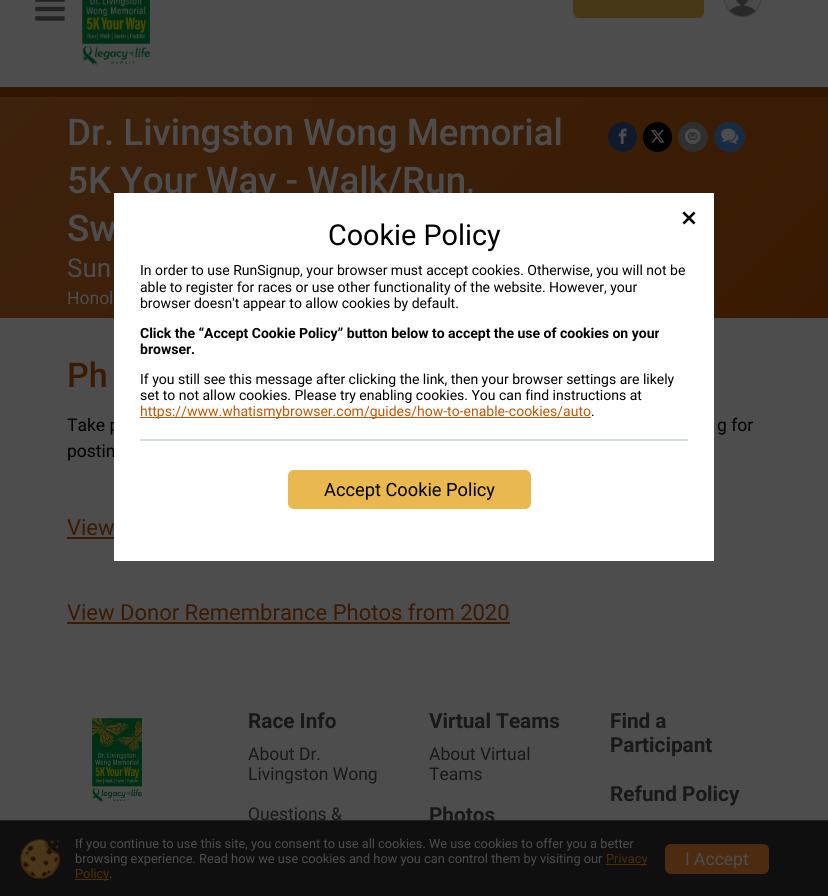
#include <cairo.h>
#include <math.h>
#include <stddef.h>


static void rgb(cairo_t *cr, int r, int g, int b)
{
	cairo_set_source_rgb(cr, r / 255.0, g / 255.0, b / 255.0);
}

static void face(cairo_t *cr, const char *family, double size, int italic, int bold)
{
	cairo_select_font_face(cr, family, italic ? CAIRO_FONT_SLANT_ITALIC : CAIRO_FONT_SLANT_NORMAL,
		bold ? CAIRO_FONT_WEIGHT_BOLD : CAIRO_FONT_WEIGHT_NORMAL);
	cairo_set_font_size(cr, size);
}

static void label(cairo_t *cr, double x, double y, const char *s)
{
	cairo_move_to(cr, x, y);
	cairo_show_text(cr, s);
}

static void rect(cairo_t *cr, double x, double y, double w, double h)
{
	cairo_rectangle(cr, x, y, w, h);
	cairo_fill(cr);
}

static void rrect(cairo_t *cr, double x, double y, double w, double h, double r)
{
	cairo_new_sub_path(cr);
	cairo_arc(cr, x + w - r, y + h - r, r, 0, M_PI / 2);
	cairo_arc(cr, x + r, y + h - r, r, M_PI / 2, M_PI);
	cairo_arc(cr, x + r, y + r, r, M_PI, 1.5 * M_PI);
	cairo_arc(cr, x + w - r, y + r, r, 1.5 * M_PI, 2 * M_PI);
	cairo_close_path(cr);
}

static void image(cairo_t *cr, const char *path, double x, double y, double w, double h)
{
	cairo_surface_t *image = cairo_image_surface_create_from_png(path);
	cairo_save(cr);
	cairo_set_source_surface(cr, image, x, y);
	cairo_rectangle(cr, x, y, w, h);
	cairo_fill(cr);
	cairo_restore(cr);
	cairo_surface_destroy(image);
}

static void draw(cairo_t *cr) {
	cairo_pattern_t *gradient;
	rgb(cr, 77, 77, 77);
	cairo_paint(cr);
	image(cr, "image0.png", 35, 0, 30, 21);
	image(cr, "image1.png", 82, 0, 68, 65);
	rgb(cr, 70, 55, 23);
	rrect(cr, 573, -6, 131, 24, 6);
	cairo_fill(cr);
	image(cr, "image2.png", 725, 0, 35, 16);
	cairo_arc(cr, 742.5, -1.5, 18, 0, 2 * M_PI);
	rgb(cr, 61, 61, 61);
	cairo_set_line_width(cr, 1);
	cairo_stroke(cr);
	gradient = cairo_pattern_create_linear(676, 470, 152, -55);
	cairo_pattern_add_color_stop_rgba(gradient, 0, 0.224, 0.102, 0.004, 1);
	cairo_pattern_add_color_stop_rgba(gradient, 1, 0.239, 0.133, 0.051, 1);
	cairo_set_source(cr, gradient);
	cairo_pattern_destroy(gradient);
	rect(cr, 0, 97, 828, 221);
	rgb(cr, 49, 22, 1);
	rect(cr, 0, 87, 828, 10);
	face(cr, "Roboto Medium", 36.75, 0, 0);
	rgb(cr, 77, 77, 77);
	label(cr, 67, 145, "Dr. Livingston Wong Memorial");
	label(cr, 67, 193, "5K Your Way - Walk/Run,");
	label(cr, 67, 241, "Sw");
	face(cr, "Roboto", 26, 0, 0);
	label(cr, 67, 277, "Sun");
	face(cr, "Roboto", 17.5, 0, 0);
	label(cr, 67, 304, "Honol");
	rgb(cr, 17, 25, 45);
	rrect(cr, 608, 122, 29, 30, 14.5);
	cairo_fill(cr);
	image(cr, "image3.png", 618, 128, 9, 16);
	rgb(cr, 0, 0, 0);
	rrect(cr, 643, 122, 29, 30, 14.5);
	cairo_fill(cr);
	image(cr, "image4.png", 651, 130, 14, 13);
	rgb(cr, 47, 47, 47);
	cairo_arc(cr, 693, 137, 15, 0, 2 * M_PI);
	cairo_fill(cr);
	image(cr, "image5.png", 685, 128, 16, 16);
	rgb(cr, 23, 44, 68);
	rrect(cr, 714, 122, 31, 30, 15);
	cairo_fill(cr);
	image(cr, "image6.png", 721, 128, 18, 16);
	face(cr, "Roboto Medium", 34, 0, 0);
	rgb(cr, 58, 26, 1);
	label(cr, 67, 387, "Ph");
	face(cr, "Roboto", 17.5, 0, 0);
	rgb(cr, 0, 0, 0);
	label(cr, 67, 431, "Take p");
	label(cr, 717, 431, "g for");
	label(cr, 67, 457, "postin");
	face(cr, "Roboto", 22, 0, 0);
	rgb(cr, 58, 26, 1);
	label(cr, 67, 535, "View");
	rect(cr, 67, 537, 47, 2);
	label(cr, 67, 620, "View Donor Remembrance Photos from 2020");
	rect(cr, 67, 622, 443, 2);
	image(cr, "image7.png", 92, 718, 50, 84);
	face(cr, "Roboto", 20.75, 0, 1);
	rgb(cr, 24, 24, 24);
	label(cr, 248, 728, "Race Info");
	face(cr, "Roboto", 17.5, 0, 0);
	label(cr, 248, 760, "About Dr.");
	label(cr, 248, 780, "Livingston Wong");
	label(cr, 248, 820, "Questions &");
	face(cr, "Roboto", 20.75, 0, 1);
	label(cr, 429, 728, "Virtual Teams");
	face(cr, "Roboto", 17.5, 0, 0);
	label(cr, 429, 760, "About Virtual");
	label(cr, 429, 780, "Teams");
	face(cr, "Roboto", 20.75, 0, 1);
	label(cr, 429, 822, "Photos");
	label(cr, 610, 728, "Find a");
	label(cr, 610, 752, "Participant");
	label(cr, 610, 801, "Refund Policy");
	cairo_rectangle(cr, 114.5, 193.5, 599, 367);
	rgb(cr, 255, 255, 255);
	cairo_stroke(cr);
	rect(cr, 115, 194, 598, 366);
	image(cr, "image8.png", 682, 211, 14, 14);
	face(cr, "Roboto", 28.75, 0, 0);
	rgb(cr, 0, 0, 0);
	label(cr, 328, 245, "Cookie Policy");
	face(cr, "Roboto", 14, 0, 0);
	label(cr, 140, 275, "In order to use RunSignup, your browser must accept cookies. Otherwise, you will not be");
	label(cr, 140, 292, "able to register for races or use other functionality of the website. However, your");
	label(cr, 140, 308, "browser doesn't appear to allow cookies by default.");
	face(cr, "Roboto", 14, 0, 1);
	label(cr, 140, 338, "Click the “Accept Cookie Policy” button below to accept the use of cookies on your");
	label(cr, 140, 354, "browser.");
	face(cr, "Roboto", 14, 0, 0);
	label(cr, 140, 384, "If you still see this message after clicking the link, then your browser settings are likely");
	label(cr, 140, 400, "set to not allow cookies. Please try enabling cookies. You can find instructions at");
	rgb(cr, 192, 87, 2);
	rect(cr, 140, 417, 451, 1);
	label(cr, 140, 416, "https://www.whatismybrowser.com/guides/how-to-enable-cookies/auto");
	rgb(cr, 0, 0, 0);
	label(cr, 591, 416, ".");
	rgb(cr, 211, 219, 223);
	rect(cr, 140, 439, 548, 2);
	rgb(cr, 233, 184, 78);
	rrect(cr, 288, 470, 243, 39, 6);
	cairo_fill(cr);
	face(cr, "Roboto", 18.25, 0, 0);
	rgb(cr, 0, 0, 0);
	label(cr, 324, 496, "Accept Cookie Policy");
	rgb(cr, 15, 15, 15);
	rect(cr, 0, 821, 828, 75);
	rgb(cr, 31, 31, 31);
	rect(cr, 0, 820, 828, 1);
	image(cr, "image9.png", 20, 838, 40, 41);
	face(cr, "Roboto", 12.8, 0, 0);
	rgb(cr, 77, 77, 77);
	label(cr, 75, 848, "If you continue to use this site, you consent to use all cookies. We use cookies to offer you a better");
	label(cr, 75, 863, "browsing experience. Read how we use cookies and how you can control them by visiting our");
	rgb(cr, 76, 46, 11);
	rect(cr, 606, 864, 41, 1);
	label(cr, 606, 863, "Privacy");
	rect(cr, 75, 879, 34, 1);
	label(cr, 75, 878, "Policy");
	rgb(cr, 77, 77, 77);
	label(cr, 109, 878, ".");
	rgb(cr, 76, 43, 16);
	rrect(cr, 665, 844, 104, 30, 6);
	cairo_fill(cr);
	face(cr, "Roboto", 17.5, 0, 0);
	rgb(cr, 77, 77, 77);
	label(cr, 685, 865, "I Accept");
}

int main(void) {
	cairo_surface_t *surface = cairo_image_surface_create(CAIRO_FORMAT_RGB24, 828, 896);
	cairo_t *cr = cairo_create(surface);
	cairo_font_options_t *options = cairo_font_options_create();
	cairo_font_options_set_hint_metrics(options, CAIRO_HINT_METRICS_OFF);
	cairo_font_options_set_hint_style(options, CAIRO_HINT_STYLE_NONE);
	cairo_set_font_options(cr, options);
	cairo_set_miter_limit(cr, 4);
	draw(cr);
	cairo_surface_write_to_png(surface, "render.png");
	cairo_font_options_destroy(options);
	cairo_destroy(cr);
	cairo_surface_destroy(surface);
	return 0;
}
